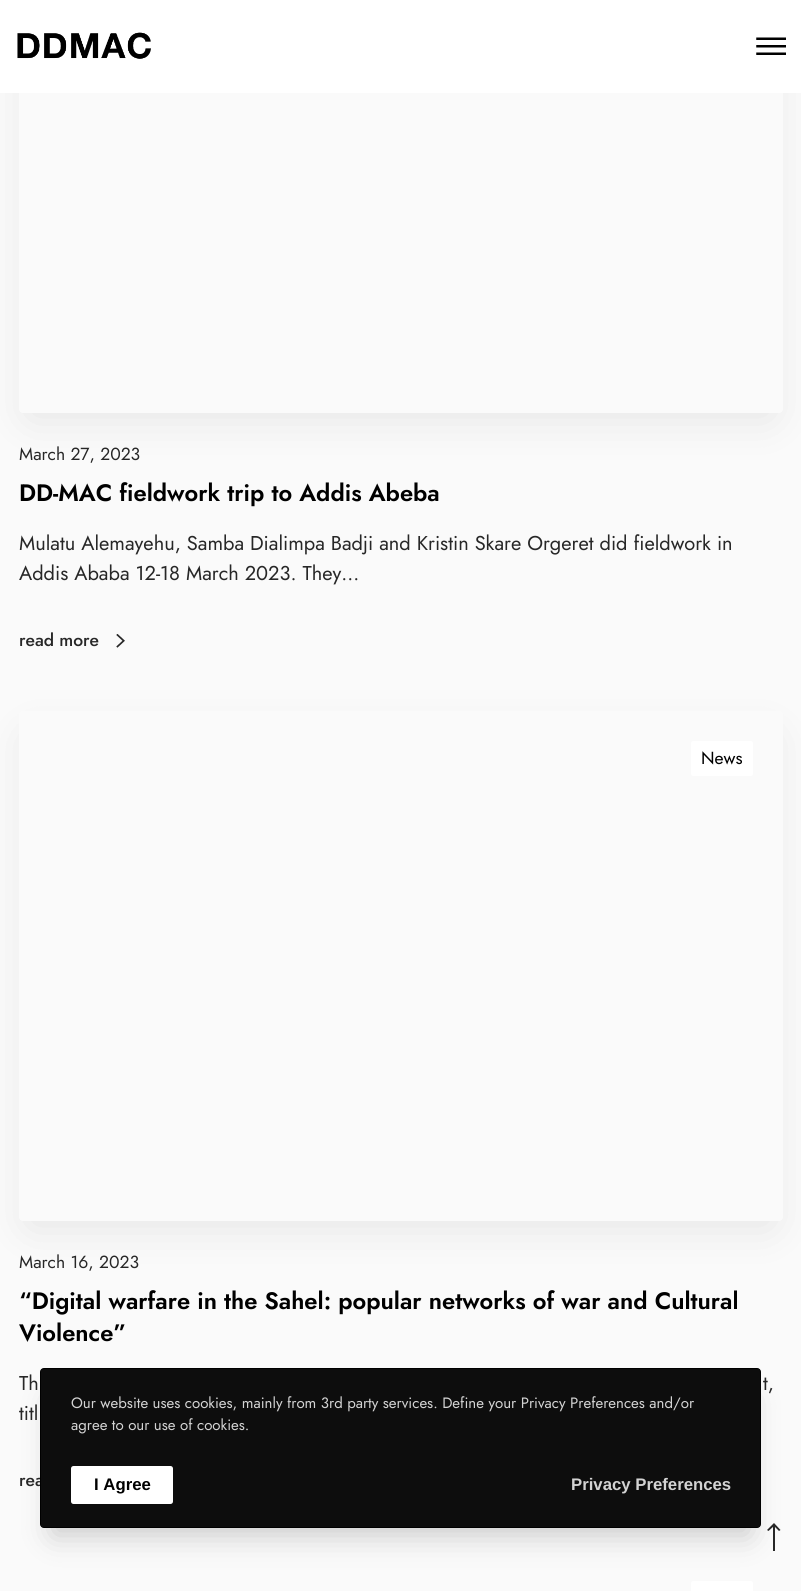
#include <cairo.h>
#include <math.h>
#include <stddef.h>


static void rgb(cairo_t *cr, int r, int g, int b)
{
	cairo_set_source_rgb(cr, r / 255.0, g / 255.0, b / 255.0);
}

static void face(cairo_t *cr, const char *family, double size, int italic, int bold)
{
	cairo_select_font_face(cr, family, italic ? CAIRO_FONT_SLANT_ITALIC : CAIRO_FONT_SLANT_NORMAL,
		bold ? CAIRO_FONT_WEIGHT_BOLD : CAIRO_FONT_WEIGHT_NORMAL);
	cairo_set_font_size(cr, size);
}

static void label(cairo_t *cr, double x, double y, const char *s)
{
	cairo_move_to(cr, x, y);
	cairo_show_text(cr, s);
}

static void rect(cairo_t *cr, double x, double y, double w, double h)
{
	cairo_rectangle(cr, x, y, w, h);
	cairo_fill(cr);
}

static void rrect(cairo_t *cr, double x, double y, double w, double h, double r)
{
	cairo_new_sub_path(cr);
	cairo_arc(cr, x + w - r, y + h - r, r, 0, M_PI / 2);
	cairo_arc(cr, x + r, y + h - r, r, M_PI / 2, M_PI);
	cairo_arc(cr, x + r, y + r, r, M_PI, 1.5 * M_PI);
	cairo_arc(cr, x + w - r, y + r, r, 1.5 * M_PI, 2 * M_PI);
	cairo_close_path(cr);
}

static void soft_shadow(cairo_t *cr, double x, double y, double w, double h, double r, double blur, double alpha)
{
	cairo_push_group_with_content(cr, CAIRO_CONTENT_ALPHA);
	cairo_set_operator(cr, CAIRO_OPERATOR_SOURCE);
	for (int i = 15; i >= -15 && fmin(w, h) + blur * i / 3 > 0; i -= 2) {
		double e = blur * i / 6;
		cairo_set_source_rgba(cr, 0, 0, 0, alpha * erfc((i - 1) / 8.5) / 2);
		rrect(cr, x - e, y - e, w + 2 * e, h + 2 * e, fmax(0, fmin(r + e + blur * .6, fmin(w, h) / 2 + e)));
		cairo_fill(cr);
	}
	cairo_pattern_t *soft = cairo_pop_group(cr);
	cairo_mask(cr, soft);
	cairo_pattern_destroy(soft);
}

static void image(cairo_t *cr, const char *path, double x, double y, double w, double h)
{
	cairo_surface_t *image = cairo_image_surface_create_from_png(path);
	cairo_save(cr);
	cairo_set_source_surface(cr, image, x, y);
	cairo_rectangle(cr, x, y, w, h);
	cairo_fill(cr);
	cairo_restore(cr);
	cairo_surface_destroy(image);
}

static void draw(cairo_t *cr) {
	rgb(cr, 250, 250, 250);
	cairo_paint(cr);
	cairo_save(cr);
	cairo_set_fill_rule(cr, CAIRO_FILL_RULE_EVEN_ODD);
	cairo_new_path(cr);
	cairo_move_to(cr, 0, 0);
	cairo_line_to(cr, 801, 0);
	cairo_line_to(cr, 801, 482);
	cairo_line_to(cr, 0, 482);
	cairo_close_path(cr);
	cairo_move_to(cr, 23, -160);
	cairo_line_to(cr, 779, -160);
	cairo_curve_to(cr, 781, -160, 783, -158, 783, -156);
	cairo_line_to(cr, 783, 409);
	cairo_curve_to(cr, 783, 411, 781, 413, 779, 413);
	cairo_line_to(cr, 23, 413);
	cairo_curve_to(cr, 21, 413, 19, 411, 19, 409);
	cairo_line_to(cr, 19, -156);
	cairo_curve_to(cr, 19, -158, 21, -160, 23, -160);
	cairo_close_path(cr);
	cairo_clip(cr);
	rgb(cr, 0, 0, 0);
	soft_shadow(cr, 31, -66, 739, 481, 0, 22, 0.1);
	cairo_restore(cr);
	rgb(cr, 255, 255, 255);
	rect(cr, 0, 0, 801, 93);
	image(cr, "image0.png", 17, 32, 134, 27);
	image(cr, "image1.png", 756, 37, 30, 18);
	face(cr, "Jost", 17.5, 0, 0);
	rgb(cr, 39, 39, 39);
	label(cr, 19, 460, "March 27, 2023");
	face(cr, "Jost SemiBold", 23.75, 0, 0);
	rgb(cr, 0, 0, 0);
	label(cr, 19, 501, "DD-MAC fieldwork trip to Addis Abeba");
	face(cr, "Jost", 20, 0, 0);
	rgb(cr, 39, 39, 39);
	label(cr, 19, 550, "Mulatu Alemayehu, Samba Dialimpa Badji and Kristin Skare Orgeret did fieldwork in");
	label(cr, 19, 580, "Addis Ababa 12-18 March 2023. They…");
	face(cr, "Jost Medium", 17.5, 0, 0);
	label(cr, 19, 646, "read more");
	image(cr, "image2.png", 116, 634, 9, 14);
	cairo_save(cr);
	cairo_set_fill_rule(cr, CAIRO_FILL_RULE_EVEN_ODD);
	cairo_new_path(cr);
	cairo_move_to(cr, 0, 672);
	cairo_line_to(cr, 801, 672);
	cairo_line_to(cr, 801, 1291);
	cairo_line_to(cr, 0, 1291);
	cairo_close_path(cr);
	cairo_move_to(cr, 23, 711);
	cairo_line_to(cr, 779, 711);
	cairo_curve_to(cr, 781, 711, 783, 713, 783, 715);
	cairo_line_to(cr, 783, 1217);
	cairo_curve_to(cr, 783, 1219, 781, 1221, 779, 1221);
	cairo_line_to(cr, 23, 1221);
	cairo_curve_to(cr, 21, 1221, 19, 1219, 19, 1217);
	cairo_line_to(cr, 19, 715);
	cairo_curve_to(cr, 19, 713, 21, 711, 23, 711);
	cairo_close_path(cr);
	cairo_clip(cr);
	rgb(cr, 0, 0, 0);
	soft_shadow(cr, 31, 739, 739, 485, 0, 22, 0.1);
	cairo_restore(cr);
	rgb(cr, 255, 255, 255);
	rrect(cr, 691, 741, 62, 35, 2.5);
	cairo_fill(cr);
	face(cr, "Jost", 17.5, 0, 0);
	rgb(cr, 0, 0, 0);
	label(cr, 701, 764, "News");
	rgb(cr, 39, 39, 39);
	label(cr, 19, 1268, "March 16, 2023");
	face(cr, "Jost SemiBold", 23.75, 0, 0);
	rgb(cr, 0, 0, 0);
	label(cr, 19, 1309, "“Digital warfare in the Sahel: popular networks of war and Cultural");
	label(cr, 19, 1341, "Violence”");
	face(cr, "Jost", 20, 0, 0);
	rgb(cr, 39, 39, 39);
	label(cr, 19, 1390, "Th");
	label(cr, 763, 1390, "t,");
	label(cr, 19, 1420, "titl");
	face(cr, "Jost Medium", 17.5, 0, 0);
	label(cr, 19, 1486, "rea");
	rgb(cr, 255, 255, 255);
	rrect(cr, 691, 1581, 62, 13, 2.5);
	cairo_fill(cr);
	rgb(cr, 39, 39, 39);
	cairo_new_path(cr);
	cairo_move_to(cr, 774, 1523);
	cairo_line_to(cr, 780.5, 1530);
	cairo_line_to(cr, 779, 1531);
	cairo_line_to(cr, 774, 1526);
	cairo_line_to(cr, 768.5, 1531);
	cairo_line_to(cr, 767, 1530);
	cairo_close_path(cr);
	cairo_fill(cr);
	rect(cr, 773, 1525, 2, 26);
	rgb(cr, 0, 0, 0);
	soft_shadow(cr, 53, 1400, 696, 135, 0, 15, 0.2);
	rgb(cr, 13, 13, 13);
	rrect(cr, 40.5, 1368.5, 720, 159, 3.5);
	cairo_fill_preserve(cr);
	rgb(cr, 0, 0, 0);
	cairo_set_line_width(cr, 1);
	cairo_stroke(cr);
	face(cr, "Jost", 15, 0, 0);
	rgb(cr, 211, 211, 211);
	label(cr, 71, 1408, "Our website uses cookies, mainly from 3rd party services. Define your Privacy Preferences and/or");
	label(cr, 71, 1430, "agree to our use of cookies.");
	rgb(cr, 255, 255, 255);
	rrect(cr, 71, 1466, 102, 38, 2.5);
	cairo_fill(cr);
	face(cr, "Liberation Sans", 16.75, 0, 1);
	rgb(cr, 0, 0, 0);
	label(cr, 94, 1490, "I Agree");
	rgb(cr, 211, 211, 211);
	label(cr, 571, 1490, "Privacy Preferences");
}

int main(void) {
	cairo_surface_t *surface = cairo_image_surface_create(CAIRO_FORMAT_RGB24, 801, 1591);
	cairo_t *cr = cairo_create(surface);
	cairo_font_options_t *options = cairo_font_options_create();
	cairo_font_options_set_hint_metrics(options, CAIRO_HINT_METRICS_OFF);
	cairo_font_options_set_hint_style(options, CAIRO_HINT_STYLE_NONE);
	cairo_set_font_options(cr, options);
	cairo_set_miter_limit(cr, 4);
	draw(cr);
	cairo_surface_write_to_png(surface, "render.png");
	cairo_font_options_destroy(options);
	cairo_destroy(cr);
	cairo_surface_destroy(surface);
	return 0;
}
